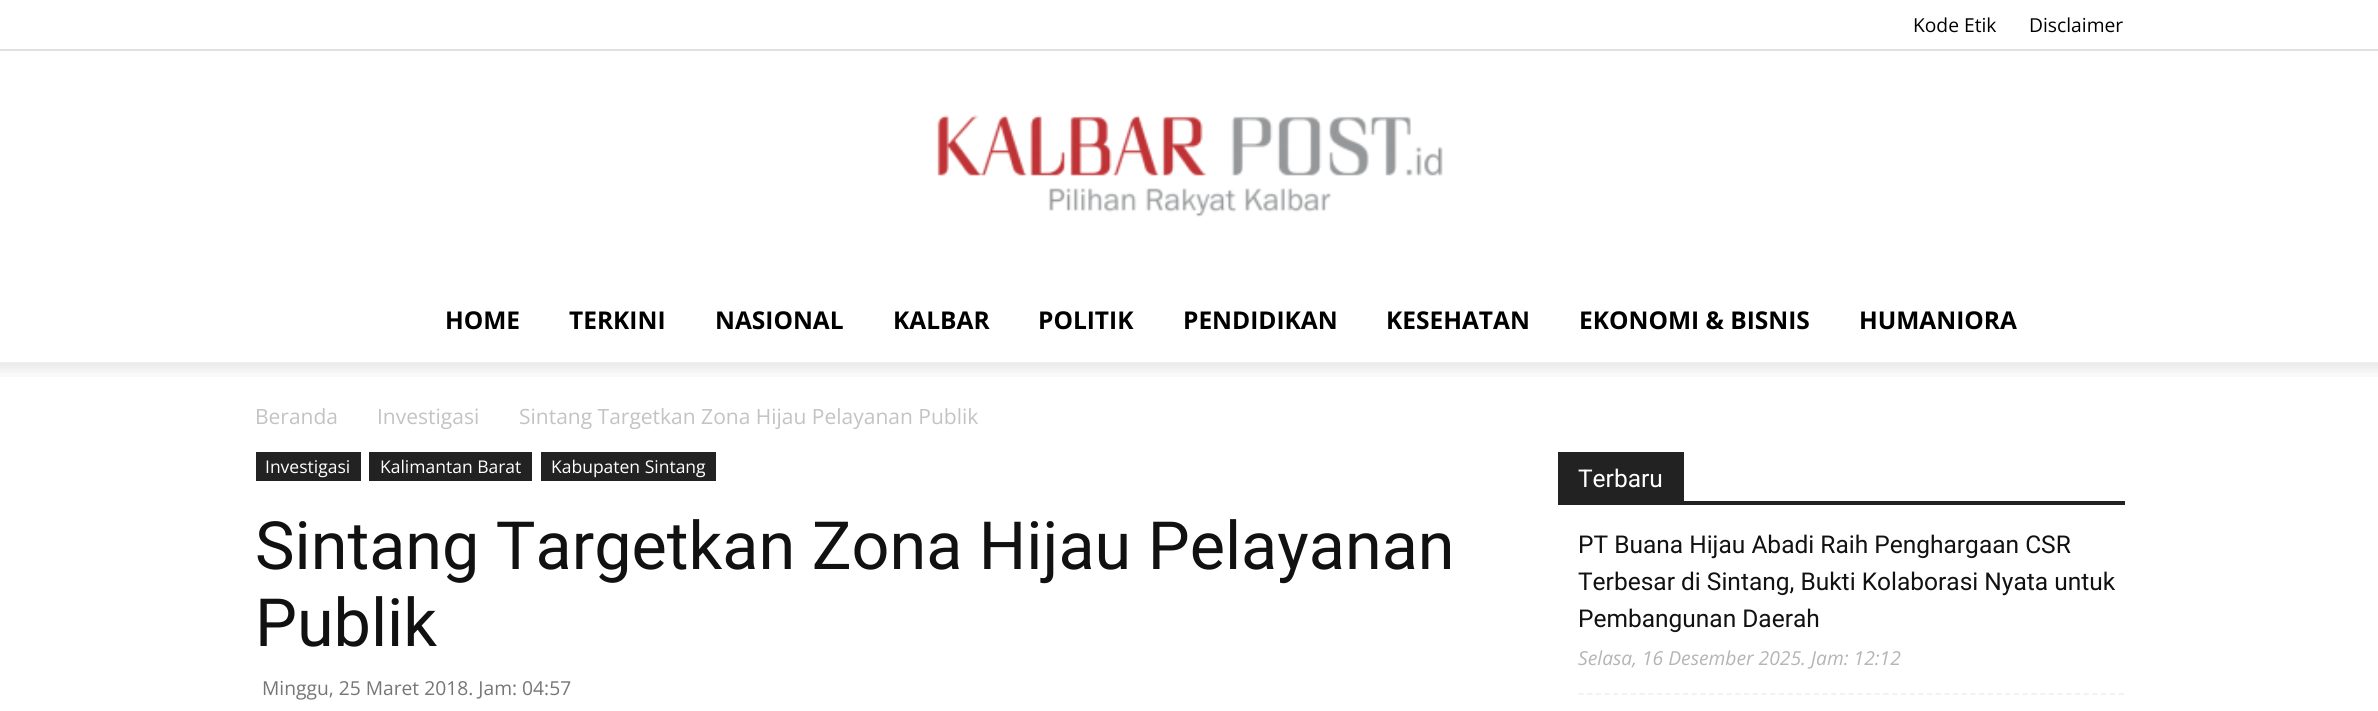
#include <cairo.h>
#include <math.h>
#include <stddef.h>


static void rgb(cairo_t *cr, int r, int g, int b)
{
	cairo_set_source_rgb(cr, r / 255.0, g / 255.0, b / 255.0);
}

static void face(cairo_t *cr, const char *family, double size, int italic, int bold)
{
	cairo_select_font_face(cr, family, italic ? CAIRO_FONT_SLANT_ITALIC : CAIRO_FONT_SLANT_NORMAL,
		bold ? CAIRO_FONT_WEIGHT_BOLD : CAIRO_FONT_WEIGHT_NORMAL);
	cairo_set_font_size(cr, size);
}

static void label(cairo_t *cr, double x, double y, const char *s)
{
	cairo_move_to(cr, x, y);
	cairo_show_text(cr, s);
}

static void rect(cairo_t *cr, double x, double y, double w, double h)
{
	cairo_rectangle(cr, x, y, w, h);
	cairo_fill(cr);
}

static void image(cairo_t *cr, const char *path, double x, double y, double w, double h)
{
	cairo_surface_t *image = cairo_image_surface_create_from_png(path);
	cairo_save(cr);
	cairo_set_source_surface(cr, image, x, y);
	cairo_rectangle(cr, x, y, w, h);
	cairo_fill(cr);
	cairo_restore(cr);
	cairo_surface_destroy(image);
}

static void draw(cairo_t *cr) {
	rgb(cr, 255, 255, 255);
	cairo_paint(cr);
	rgb(cr, 224, 224, 224);
	rect(cr, 0, 49, 2378, 2);
	face(cr, "Open Sans", 19.25, 0, 0);
	rgb(cr, 0, 0, 0);
	label(cr, 1913, 32, "Kode Etik");
	label(cr, 2029, 32, "Disclaimer");
	image(cr, "image0.png", 937, 115, 506, 102);
	face(cr, "Open Sans", 24.5, 0, 1);
	label(cr, 445, 329, "HOME");
	label(cr, 569, 329, "TERKINI");
	label(cr, 715, 329, "NASIONAL");
	label(cr, 893, 329, "KALBAR");
	label(cr, 1038, 329, "POLITIK");
	label(cr, 1183, 329, "PENDIDIKAN");
	label(cr, 1386, 329, "KESEHATAN");
	label(cr, 1579, 329, "EKONOMI & BISNIS");
	label(cr, 1859, 329, "HUMANIORA");
	image(cr, "image1.png", 0, 362, 2378, 15);
	face(cr, "Open Sans", 21, 0, 0);
	rgb(cr, 195, 195, 195);
	label(cr, 255, 424, "Beranda");
	label(cr, 377, 424, "Investigasi");
	label(cr, 519, 424, "Sintang Targetkan Zona Hijau Pelayanan Publik");
	rgb(cr, 34, 34, 34);
	rect(cr, 256, 452, 105, 29);
	face(cr, "Open Sans", 17.5, 0, 0);
	rgb(cr, 255, 255, 255);
	label(cr, 265, 473, "Investigasi");
	rgb(cr, 34, 34, 34);
	rect(cr, 369, 452, 163, 29);
	rgb(cr, 255, 255, 255);
	label(cr, 380, 473, "Kalimantan Barat");
	rgb(cr, 34, 34, 34);
	rect(cr, 541, 452, 175, 29);
	rgb(cr, 255, 255, 255);
	label(cr, 551, 473, "Kabupaten Sintang");
	face(cr, "Roboto", 66.5, 0, 0);
	rgb(cr, 17, 17, 17);
	label(cr, 255, 569, "Sintang Targetkan Zona Hijau Pelayanan");
	label(cr, 255, 646, "Publik");
	face(cr, "Open Sans", 19.25, 0, 0);
	rgb(cr, 118, 118, 118);
	label(cr, 262, 695, "Minggu, 25 Maret 2018. Jam: 04:57");
	rgb(cr, 34, 34, 34);
	rect(cr, 1558, 501, 567, 4);
	rect(cr, 1558, 452, 126, 49);
	face(cr, "Roboto", 24.5, 0, 0);
	rgb(cr, 255, 255, 255);
	label(cr, 1578, 487, "Terbaru");
	cairo_new_path(cr);
	cairo_move_to(cr, 1578.5, 694);
	cairo_line_to(cr, 2124.5, 694);
	rgb(cr, 241, 241, 241);
	cairo_set_line_width(cr, 1.8);
	cairo_set_dash(cr, (double[]){5.25, 3.46}, 2, 0);
	cairo_stroke(cr);
	rgb(cr, 17, 17, 17);
	label(cr, 1578, 553, "PT Buana Hijau Abadi Raih Penghargaan CSR");
	label(cr, 1578, 590, "Terbesar di Sintang, Bukti Kolaborasi Nyata untuk");
	label(cr, 1578, 627, "Pembangunan Daerah");
	face(cr, "Open Sans", 19.25, 1, 0);
	rgb(cr, 181, 181, 181);
	label(cr, 1578, 665, "Selasa, 16 Desember 2025. Jam: 12:12");
}

int main(void) {
	cairo_surface_t *surface = cairo_image_surface_create(CAIRO_FORMAT_RGB24, 2378, 711);
	cairo_t *cr = cairo_create(surface);
	cairo_font_options_t *options = cairo_font_options_create();
	cairo_font_options_set_hint_metrics(options, CAIRO_HINT_METRICS_OFF);
	cairo_font_options_set_hint_style(options, CAIRO_HINT_STYLE_NONE);
	cairo_set_font_options(cr, options);
	cairo_set_miter_limit(cr, 4);
	draw(cr);
	cairo_surface_write_to_png(surface, "render.png");
	cairo_font_options_destroy(options);
	cairo_destroy(cr);
	cairo_surface_destroy(surface);
	return 0;
}
